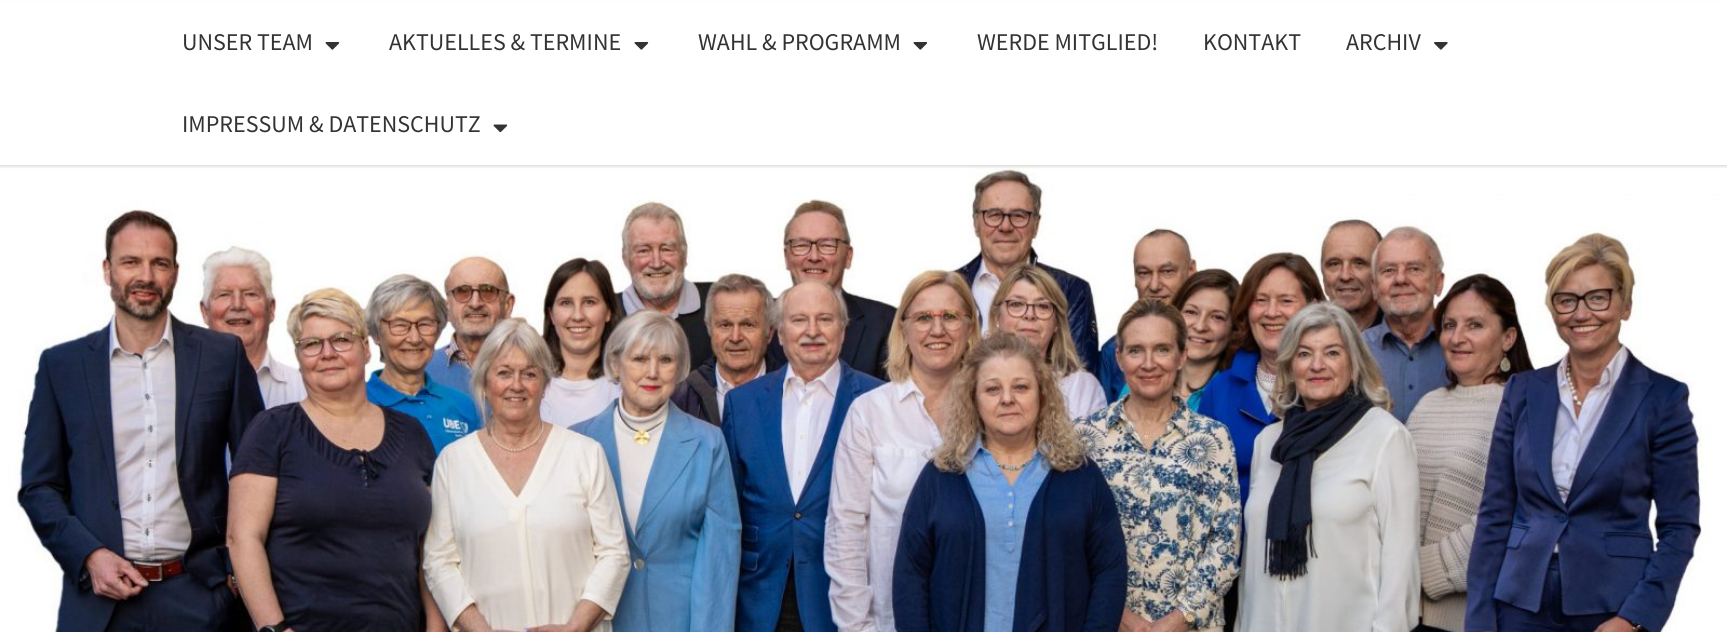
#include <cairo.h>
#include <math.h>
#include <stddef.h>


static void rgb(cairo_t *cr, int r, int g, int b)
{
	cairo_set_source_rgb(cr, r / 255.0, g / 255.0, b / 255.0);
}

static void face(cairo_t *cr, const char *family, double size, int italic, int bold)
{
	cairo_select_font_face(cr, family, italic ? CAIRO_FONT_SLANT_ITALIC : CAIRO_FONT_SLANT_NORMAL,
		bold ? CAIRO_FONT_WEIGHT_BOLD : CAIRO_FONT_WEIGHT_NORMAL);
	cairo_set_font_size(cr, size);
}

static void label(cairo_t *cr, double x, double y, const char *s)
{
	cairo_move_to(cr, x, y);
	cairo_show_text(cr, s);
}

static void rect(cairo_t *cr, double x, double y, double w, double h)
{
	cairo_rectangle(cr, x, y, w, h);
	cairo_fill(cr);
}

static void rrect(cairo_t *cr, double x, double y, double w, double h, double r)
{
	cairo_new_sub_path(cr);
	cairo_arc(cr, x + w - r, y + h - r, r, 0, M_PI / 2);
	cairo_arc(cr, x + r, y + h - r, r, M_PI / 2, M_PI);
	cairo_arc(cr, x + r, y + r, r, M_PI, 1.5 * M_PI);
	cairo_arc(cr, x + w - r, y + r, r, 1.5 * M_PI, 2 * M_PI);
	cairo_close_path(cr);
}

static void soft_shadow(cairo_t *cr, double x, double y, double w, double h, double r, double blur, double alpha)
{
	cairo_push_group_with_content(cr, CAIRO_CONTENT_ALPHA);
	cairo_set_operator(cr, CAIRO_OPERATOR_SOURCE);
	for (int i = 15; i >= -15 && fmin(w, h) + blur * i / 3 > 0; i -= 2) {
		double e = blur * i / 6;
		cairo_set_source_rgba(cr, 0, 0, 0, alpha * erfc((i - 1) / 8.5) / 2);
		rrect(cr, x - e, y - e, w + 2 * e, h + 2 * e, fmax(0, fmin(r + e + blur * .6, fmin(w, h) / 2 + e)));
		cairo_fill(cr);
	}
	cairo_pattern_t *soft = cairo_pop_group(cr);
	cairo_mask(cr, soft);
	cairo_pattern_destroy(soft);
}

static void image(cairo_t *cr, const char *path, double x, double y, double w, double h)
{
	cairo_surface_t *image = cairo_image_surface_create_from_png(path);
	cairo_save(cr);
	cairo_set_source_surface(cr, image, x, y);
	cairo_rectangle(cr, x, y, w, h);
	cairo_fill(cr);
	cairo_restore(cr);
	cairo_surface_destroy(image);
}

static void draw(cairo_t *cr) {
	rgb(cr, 255, 255, 255);
	cairo_paint(cr);
	image(cr, "image3.png", 0, 165, 1727, 467);
	rgb(cr, 100, 100, 100);
	soft_shadow(cr, 0, 2, 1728, 165, 0, 1, 0.2);
	rgb(cr, 255, 255, 255);
	rect(cr, 0, 1, 1727, 164);
	face(cr, "Source Sans Pro", 24, 0, 0);
	rgb(cr, 51, 51, 51);
	label(cr, 182, 50, "UNSER TEAM");
	image(cr, "image0.png", 325, 42, 15, 8);
	label(cr, 389, 50, "AKTUELLES & TERMINE");
	image(cr, "image0.png", 634, 42, 15, 8);
	label(cr, 698, 50, "WAHL & PROGRAMM");
	image(cr, "image0.png", 913, 42, 15, 8);
	label(cr, 977, 50, "WERDE MITGLIED!");
	label(cr, 1203, 50, "KONTAKT");
	label(cr, 1346, 50, "ARCHIV");
	image(cr, "image1.png", 1434, 42, 14, 8);
	label(cr, 182, 132, "IMPRESSUM & DATENSCHUTZ");
	image(cr, "image2.png", 493, 124, 15, 9);
}

int main(void) {
	cairo_surface_t *surface = cairo_image_surface_create(CAIRO_FORMAT_RGB24, 1727, 632);
	cairo_t *cr = cairo_create(surface);
	cairo_font_options_t *options = cairo_font_options_create();
	cairo_font_options_set_hint_metrics(options, CAIRO_HINT_METRICS_OFF);
	cairo_font_options_set_hint_style(options, CAIRO_HINT_STYLE_NONE);
	cairo_set_font_options(cr, options);
	cairo_set_miter_limit(cr, 4);
	draw(cr);
	cairo_surface_write_to_png(surface, "render.png");
	cairo_font_options_destroy(options);
	cairo_destroy(cr);
	cairo_surface_destroy(surface);
	return 0;
}
